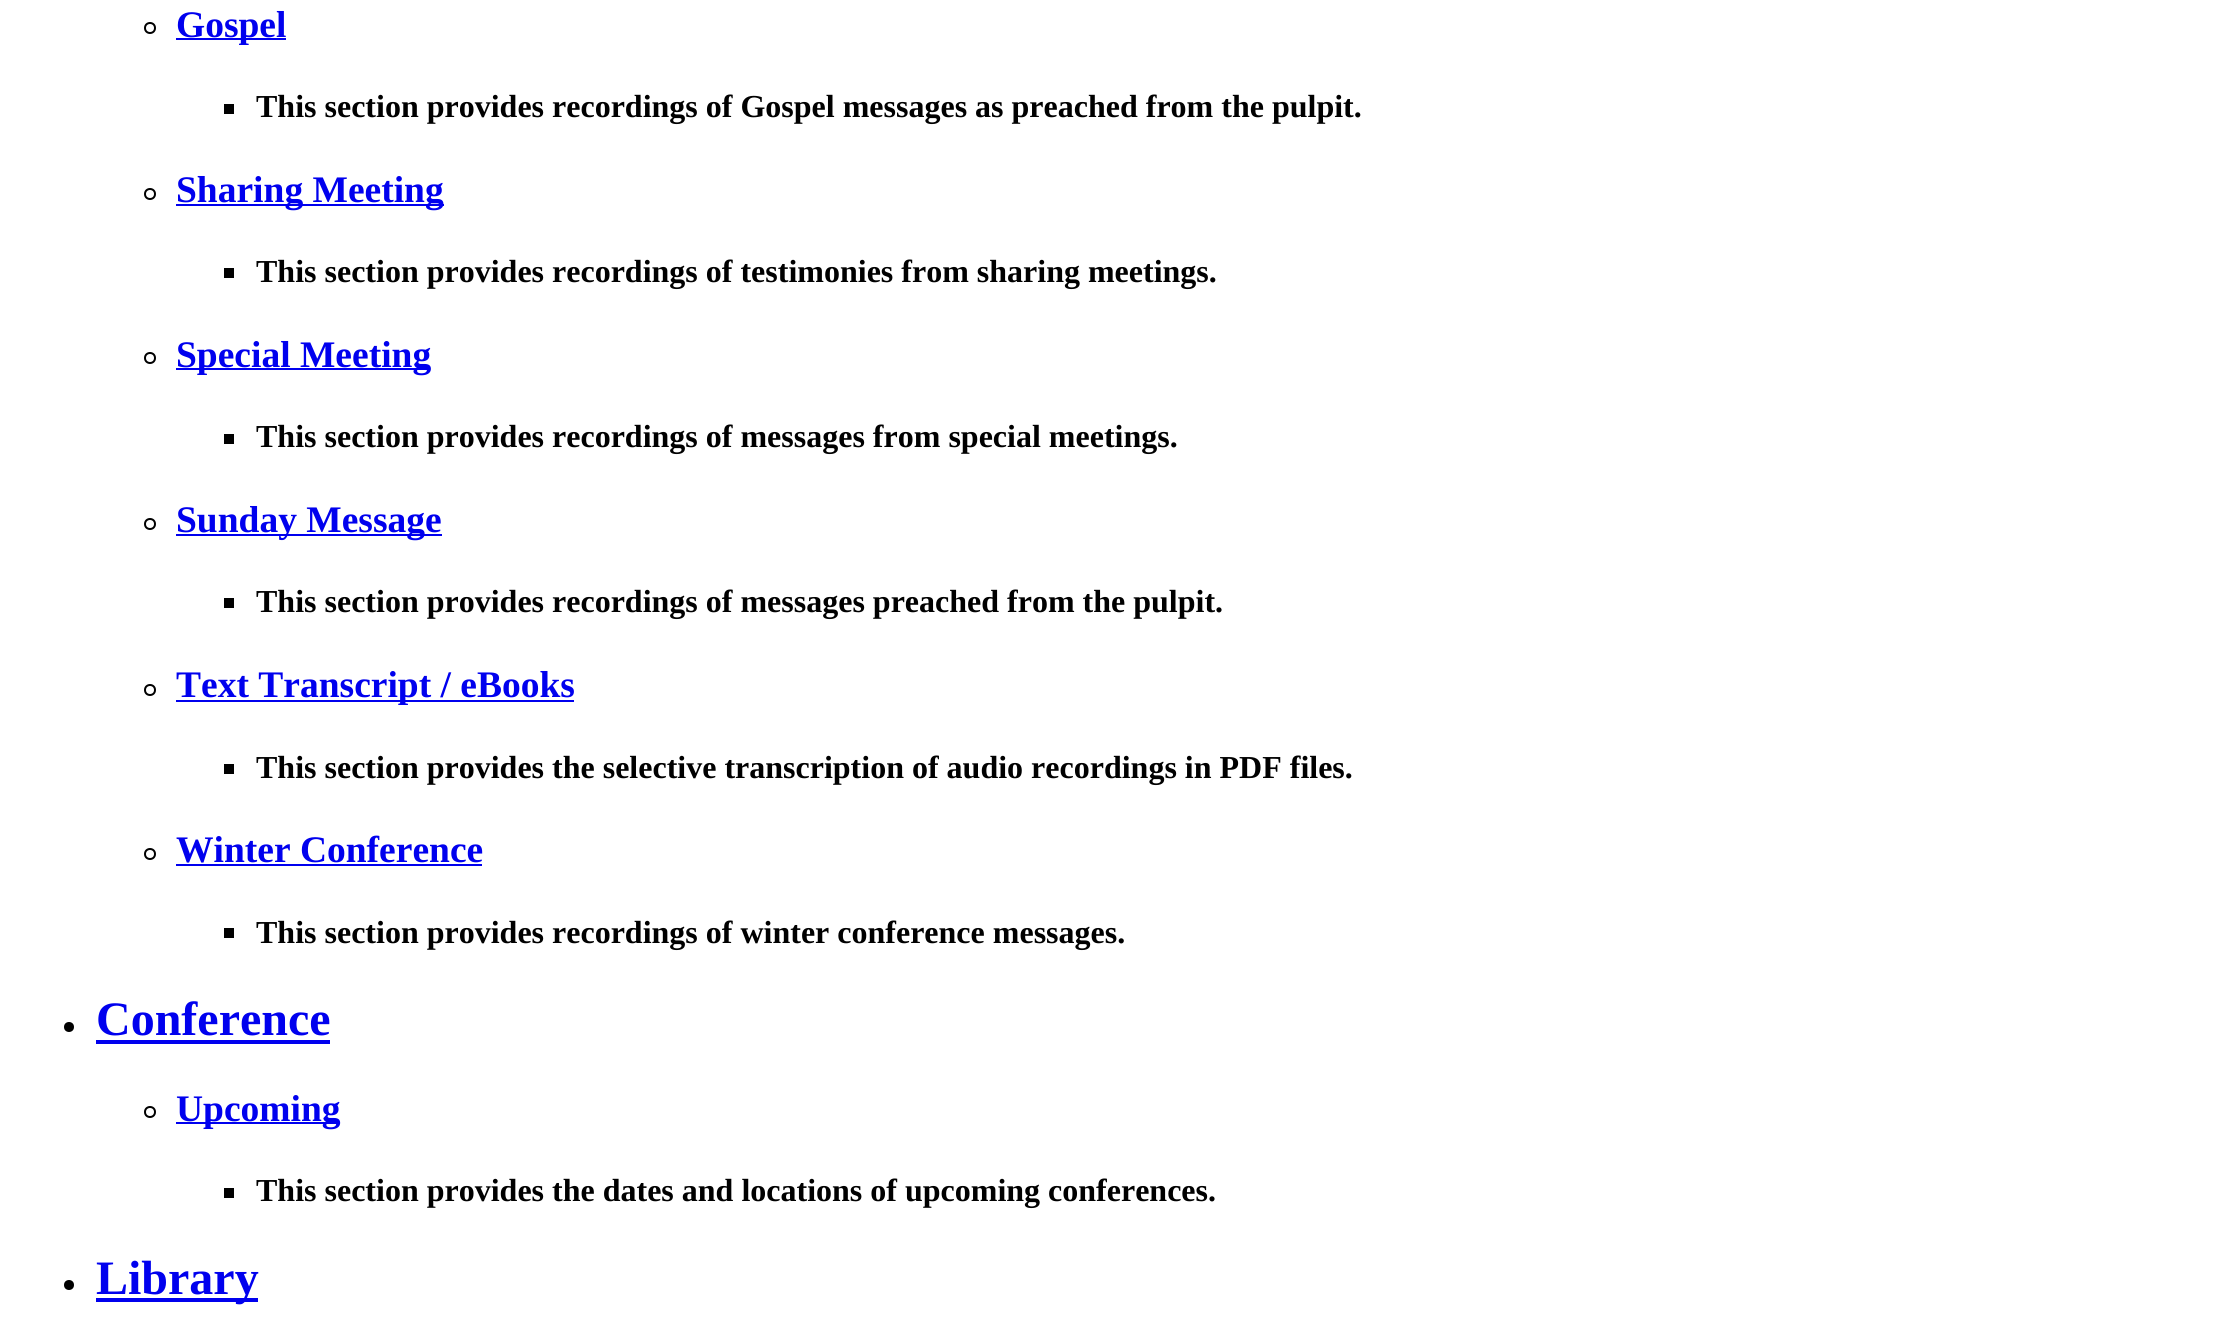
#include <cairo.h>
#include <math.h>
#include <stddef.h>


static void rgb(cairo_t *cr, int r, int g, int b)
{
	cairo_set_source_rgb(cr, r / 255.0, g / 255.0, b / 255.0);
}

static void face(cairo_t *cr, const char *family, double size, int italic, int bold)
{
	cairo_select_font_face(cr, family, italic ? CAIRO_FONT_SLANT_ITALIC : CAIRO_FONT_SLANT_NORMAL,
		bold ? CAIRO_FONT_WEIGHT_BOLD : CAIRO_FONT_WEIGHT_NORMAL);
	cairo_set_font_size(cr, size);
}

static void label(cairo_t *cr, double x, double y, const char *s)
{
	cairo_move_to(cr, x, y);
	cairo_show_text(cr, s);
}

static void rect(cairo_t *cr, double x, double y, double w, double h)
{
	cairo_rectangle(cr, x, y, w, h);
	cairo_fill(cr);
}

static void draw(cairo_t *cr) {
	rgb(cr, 255, 255, 255);
	cairo_paint(cr);
	cairo_arc(cr, 150, 28, 5, 0, 2 * M_PI);
	rgb(cr, 0, 0, 0);
	cairo_stroke(cr);
	rgb(cr, 0, 0, 238);
	rect(cr, 176, 38, 110, 2);
	face(cr, "Liberation Serif", 37.5, 0, 1);
	label(cr, 176, 37, "Gospel");
	rgb(cr, 0, 0, 0);
	rect(cr, 224, 104, 10, 10);
	face(cr, "Liberation Serif", 32, 0, 1);
	label(cr, 256, 117, "This section provides recordings of Gospel messages as preached from the pulpit.");
	cairo_new_path(cr);
	cairo_arc(cr, 150, 194, 5, 0, 2 * M_PI);
	cairo_stroke(cr);
	rgb(cr, 0, 0, 238);
	rect(cr, 176, 204, 268, 2);
	face(cr, "Liberation Serif", 37.5, 0, 1);
	label(cr, 176, 202, "Sharing Meeting");
	rgb(cr, 0, 0, 0);
	rect(cr, 224, 268, 10, 10);
	face(cr, "Liberation Serif", 32, 0, 1);
	label(cr, 256, 282, "This section provides recordings of testimonies from sharing meetings.");
	cairo_new_path(cr);
	cairo_arc(cr, 150, 358, 5, 0, 2 * M_PI);
	cairo_stroke(cr);
	rgb(cr, 0, 0, 238);
	rect(cr, 176, 368, 254, 2);
	face(cr, "Liberation Serif", 37.5, 0, 1);
	label(cr, 176, 367, "Special Meeting");
	rgb(cr, 0, 0, 0);
	rect(cr, 224, 434, 10, 10);
	face(cr, "Liberation Serif", 32, 0, 1);
	label(cr, 256, 447, "This section provides recordings of messages from special meetings.");
	cairo_new_path(cr);
	cairo_arc(cr, 150, 524, 5, 0, 2 * M_PI);
	cairo_stroke(cr);
	rgb(cr, 0, 0, 238);
	rect(cr, 176, 534, 266, 2);
	face(cr, "Liberation Serif", 37.5, 0, 1);
	label(cr, 176, 532, "Sunday Message");
	rgb(cr, 0, 0, 0);
	rect(cr, 224, 598, 10, 10);
	face(cr, "Liberation Serif", 32, 0, 1);
	label(cr, 256, 612, "This section provides recordings of messages preached from the pulpit.");
	cairo_new_path(cr);
	cairo_arc(cr, 150, 690, 5, 0, 2 * M_PI);
	cairo_stroke(cr);
	rgb(cr, 0, 0, 238);
	rect(cr, 176, 700, 398, 2);
	face(cr, "Liberation Serif", 37.5, 0, 1);
	label(cr, 176, 697, "Text Transcript / eBooks");
	rgb(cr, 0, 0, 0);
	rect(cr, 224, 764, 10, 10);
	face(cr, "Liberation Serif", 32, 0, 1);
	label(cr, 256, 778, "This section provides the selective transcription of audio recordings in PDF files.");
	cairo_new_path(cr);
	cairo_arc(cr, 150, 854, 5, 0, 2 * M_PI);
	cairo_stroke(cr);
	face(cr, "Liberation Serif", 37.5, 0, 1);
	rgb(cr, 0, 0, 238);
	label(cr, 176, 862, "Winter Conference");
	rect(cr, 176, 864, 306, 2);
	rgb(cr, 0, 0, 0);
	rect(cr, 224, 928, 10, 10);
	face(cr, "Liberation Serif", 32, 0, 1);
	label(cr, 256, 943, "This section provides recordings of winter conference messages.");
	cairo_new_path(cr);
	cairo_arc(cr, 69, 1027, 5, 0, 2 * M_PI);
	cairo_fill(cr);
	face(cr, "Liberation Serif", 48, 0, 1);
	rgb(cr, 0, 0, 238);
	label(cr, 96, 1035, "Conference");
	rect(cr, 96, 1040, 234, 4);
	cairo_new_path(cr);
	cairo_arc(cr, 150, 1112, 5, 0, 2 * M_PI);
	rgb(cr, 0, 0, 0);
	cairo_stroke(cr);
	rgb(cr, 0, 0, 238);
	rect(cr, 176, 1122, 164, 2);
	face(cr, "Liberation Serif", 37.5, 0, 1);
	label(cr, 176, 1121, "Upcoming");
	rgb(cr, 0, 0, 0);
	rect(cr, 224, 1188, 10, 10);
	face(cr, "Liberation Serif", 32, 0, 1);
	label(cr, 256, 1201, "This section provides the dates and locations of upcoming conferences.");
	cairo_new_path(cr);
	cairo_arc(cr, 69, 1285, 5, 0, 2 * M_PI);
	cairo_fill(cr);
	rgb(cr, 0, 0, 238);
	rect(cr, 96, 1298, 162, 4);
	face(cr, "Liberation Serif", 48, 0, 1);
	label(cr, 96, 1294, "Library");
}

int main(void) {
	cairo_surface_t *surface = cairo_image_surface_create(CAIRO_FORMAT_RGB24, 2224, 1318);
	cairo_t *cr = cairo_create(surface);
	cairo_font_options_t *options = cairo_font_options_create();
	cairo_font_options_set_hint_metrics(options, CAIRO_HINT_METRICS_OFF);
	cairo_font_options_set_hint_style(options, CAIRO_HINT_STYLE_NONE);
	cairo_set_font_options(cr, options);
	cairo_set_miter_limit(cr, 4);
	draw(cr);
	cairo_surface_write_to_png(surface, "render.png");
	cairo_font_options_destroy(options);
	cairo_destroy(cr);
	cairo_surface_destroy(surface);
	return 0;
}
